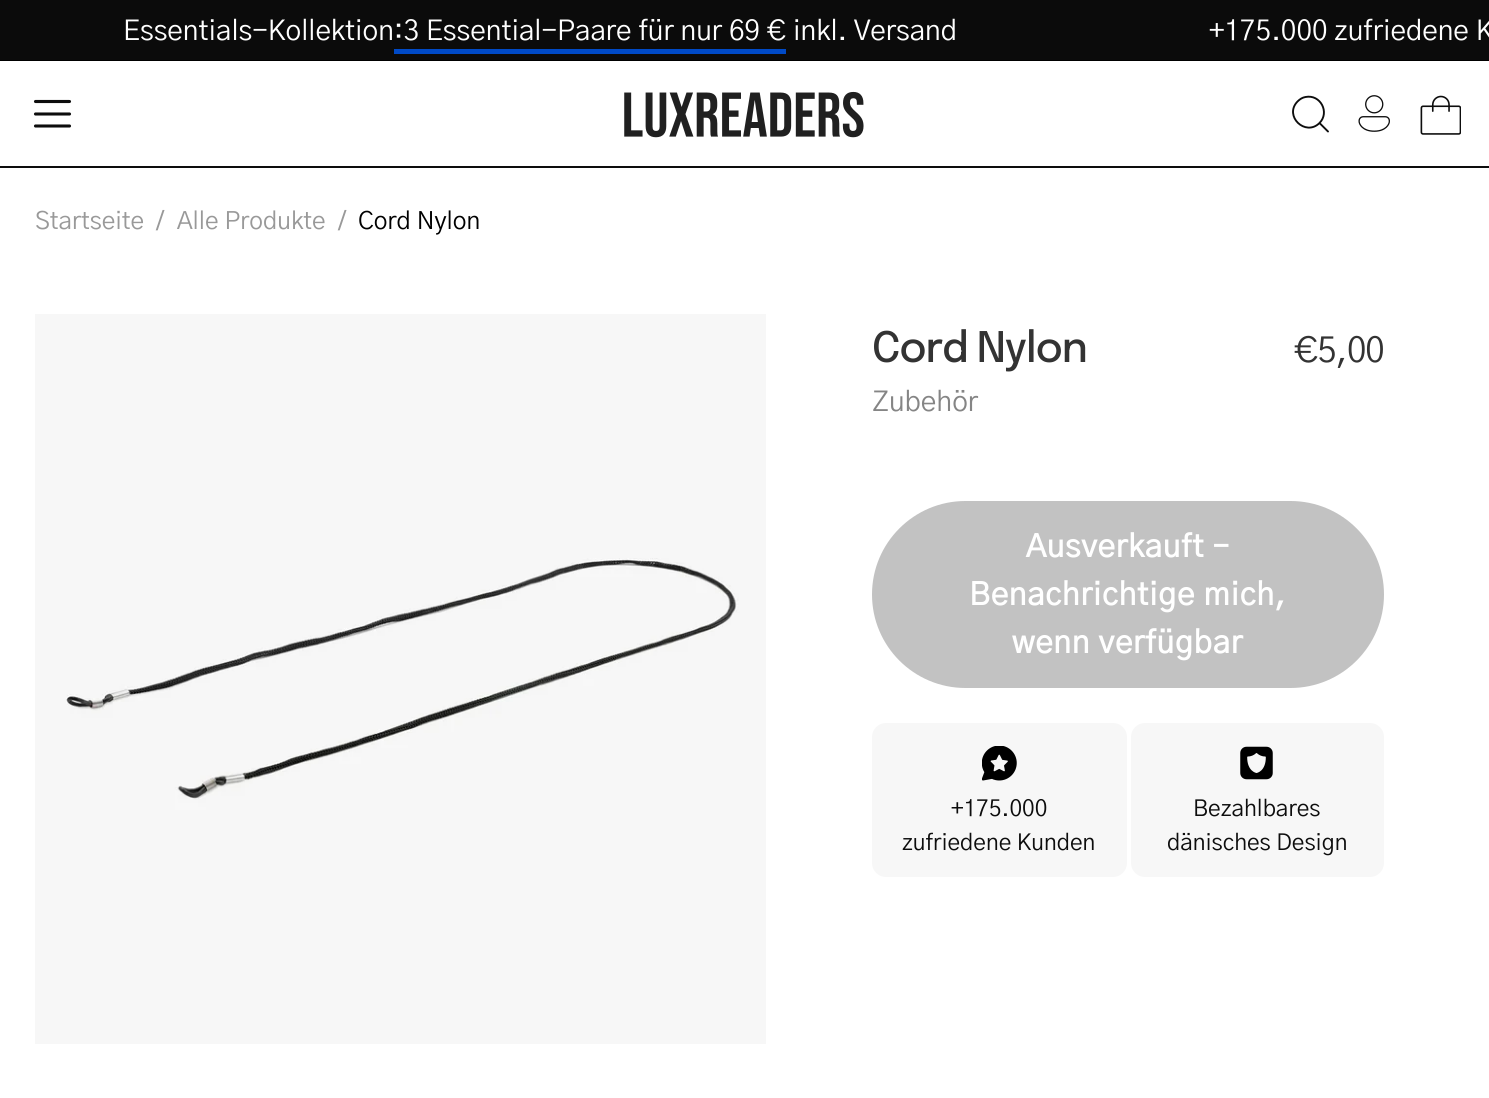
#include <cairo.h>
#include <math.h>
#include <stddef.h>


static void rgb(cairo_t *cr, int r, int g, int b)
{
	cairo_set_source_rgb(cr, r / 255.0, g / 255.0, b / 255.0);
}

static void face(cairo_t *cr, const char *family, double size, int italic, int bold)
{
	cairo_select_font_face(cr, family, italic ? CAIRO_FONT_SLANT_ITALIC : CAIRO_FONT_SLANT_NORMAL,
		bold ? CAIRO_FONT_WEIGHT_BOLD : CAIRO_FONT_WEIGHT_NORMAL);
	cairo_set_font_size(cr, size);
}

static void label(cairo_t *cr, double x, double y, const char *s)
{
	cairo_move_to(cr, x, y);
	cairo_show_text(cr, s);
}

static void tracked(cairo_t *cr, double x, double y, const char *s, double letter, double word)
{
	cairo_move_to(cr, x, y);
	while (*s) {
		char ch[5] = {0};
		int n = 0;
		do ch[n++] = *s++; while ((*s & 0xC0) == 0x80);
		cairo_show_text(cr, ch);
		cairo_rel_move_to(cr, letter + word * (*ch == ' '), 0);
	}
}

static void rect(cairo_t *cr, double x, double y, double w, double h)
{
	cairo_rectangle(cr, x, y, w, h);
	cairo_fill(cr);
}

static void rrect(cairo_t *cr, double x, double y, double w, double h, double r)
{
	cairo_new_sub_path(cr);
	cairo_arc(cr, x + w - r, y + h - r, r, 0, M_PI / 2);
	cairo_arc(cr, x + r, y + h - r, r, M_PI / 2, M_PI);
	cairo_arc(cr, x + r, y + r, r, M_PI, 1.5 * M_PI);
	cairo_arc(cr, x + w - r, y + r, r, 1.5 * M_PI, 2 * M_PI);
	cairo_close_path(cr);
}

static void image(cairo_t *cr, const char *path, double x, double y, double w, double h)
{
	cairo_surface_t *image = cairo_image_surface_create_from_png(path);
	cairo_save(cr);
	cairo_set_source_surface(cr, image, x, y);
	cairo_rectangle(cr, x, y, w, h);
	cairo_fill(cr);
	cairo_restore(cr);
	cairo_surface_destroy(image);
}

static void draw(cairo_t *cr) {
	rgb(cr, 255, 255, 255);
	cairo_paint(cr);
	rgb(cr, 11, 11, 11);
	rect(cr, 0, 0, 1489, 60);
	rgb(cr, 0, 0, 0);
	rect(cr, 0, 60, 1489, 1);
	face(cr, "Gothic A1", 28, 0, 0);
	rgb(cr, 255, 255, 255);
	label(cr, 123, 40, "Essentials-Kollektion:3 Essential-Paare für nur 69 €");
	label(cr, 793, 40, "inkl. Versand");
	rgb(cr, 0, 74, 199);
	rect(cr, 394, 49, 392, 5);
	rgb(cr, 255, 255, 255);
	label(cr, 1209, 40, "+175.000 zufriedene K");
	cairo_new_path(cr);
	cairo_move_to(cr, 35.5, 114);
	cairo_line_to(cr, 69.5, 114);
	cairo_move_to(cr, 35.5, 101.5);
	cairo_line_to(cr, 69.5, 101.5);
	cairo_move_to(cr, 35.5, 126);
	cairo_line_to(cr, 69.5, 126);
	rgb(cr, 13, 13, 13);
	cairo_set_line_width(cr, 3.1);
	cairo_set_line_cap(cr, CAIRO_LINE_CAP_ROUND);
	cairo_set_line_join(cr, CAIRO_LINE_JOIN_ROUND);
	cairo_stroke(cr);
	image(cr, "image0.png", 624, 91, 240, 47);
	cairo_new_path(cr);
	cairo_move_to(cr, 1328, 131.5);
	cairo_line_to(cr, 1319.5, 123);
	cairo_move_to(cr, 1319.5, 123);
	cairo_curve_to(cr, 1330, 112.5, 1320.5, 94, 1305.5, 97);
	cairo_curve_to(cr, 1302.5, 97.5, 1300, 99, 1297.5, 101.5);
	cairo_curve_to(cr, 1283.5, 116, 1305.5, 137, 1319.5, 123);
	cairo_close_path(cr);
	cairo_set_line_width(cr, 1.9);
	cairo_stroke(cr);
	image(cr, "image1.png", 1358, 95, 32, 37);
	image(cr, "image2.png", 1420, 95, 41, 40);
	rect(cr, 0, 166, 1489, 2);
	face(cr, "Gothic A1", 24.5, 0, 0);
	rgb(cr, 153, 153, 153);
	label(cr, 35, 229, "Startseite");
	label(cr, 156, 229, "/");
	label(cr, 177, 229, "Alle Produkte");
	label(cr, 338, 229, "/");
	rgb(cr, 0, 0, 0);
	label(cr, 358, 229, "Cord Nylon");
	image(cr, "image3.png", 35, 314, 731, 730);
	face(cr, "Epilogue Medium", 42, 0, 0);
	rgb(cr, 51, 51, 51);
	tracked(cr, 872, 362, "Cord Nylon", -1.25, 0);
	face(cr, "Gothic A1", 35, 0, 0);
	tracked(cr, 1294, 362, "€5,00", -1, 0);
	face(cr, "Gothic A1", 28, 0, 0);
	rgb(cr, 133, 133, 133);
	label(cr, 872, 411, "Zubehör");
	rgb(cr, 194, 194, 194);
	rrect(cr, 872, 501, 512, 187, 93.5);
	cairo_fill(cr);
	face(cr, "Gothic A1", 31.5, 0, 1);
	rgb(cr, 255, 255, 255);
	tracked(cr, 1026, 557, "Ausverkauft –", 0.75, 0);
	tracked(cr, 969, 605, "Benachrichtige mich,", 0.75, 0);
	tracked(cr, 1012, 653, "wenn verfügbar", 0.75, 0);
	rgb(cr, 247, 247, 247);
	rrect(cr, 872, 723, 255, 154, 14);
	cairo_fill(cr);
	image(cr, "image4.png", 982, 746, 35, 35);
	face(cr, "Gothic A1", 22.75, 0, 0);
	rgb(cr, 13, 13, 13);
	label(cr, 951, 816, "+175.000");
	label(cr, 902, 850, "zufriedene Kunden");
	rgb(cr, 247, 247, 247);
	rrect(cr, 1131, 723, 253, 154, 14);
	cairo_fill(cr);
	image(cr, "image5.png", 1240, 746, 33, 34);
	rgb(cr, 13, 13, 13);
	label(cr, 1193, 816, "Bezahlbares");
	label(cr, 1167, 850, "dänisches Design");
}

int main(void) {
	cairo_surface_t *surface = cairo_image_surface_create(CAIRO_FORMAT_RGB24, 1489, 1098);
	cairo_t *cr = cairo_create(surface);
	cairo_font_options_t *options = cairo_font_options_create();
	cairo_font_options_set_hint_metrics(options, CAIRO_HINT_METRICS_OFF);
	cairo_font_options_set_hint_style(options, CAIRO_HINT_STYLE_NONE);
	cairo_set_font_options(cr, options);
	cairo_set_miter_limit(cr, 4);
	draw(cr);
	cairo_surface_write_to_png(surface, "render.png");
	cairo_font_options_destroy(options);
	cairo_destroy(cr);
	cairo_surface_destroy(surface);
	return 0;
}
